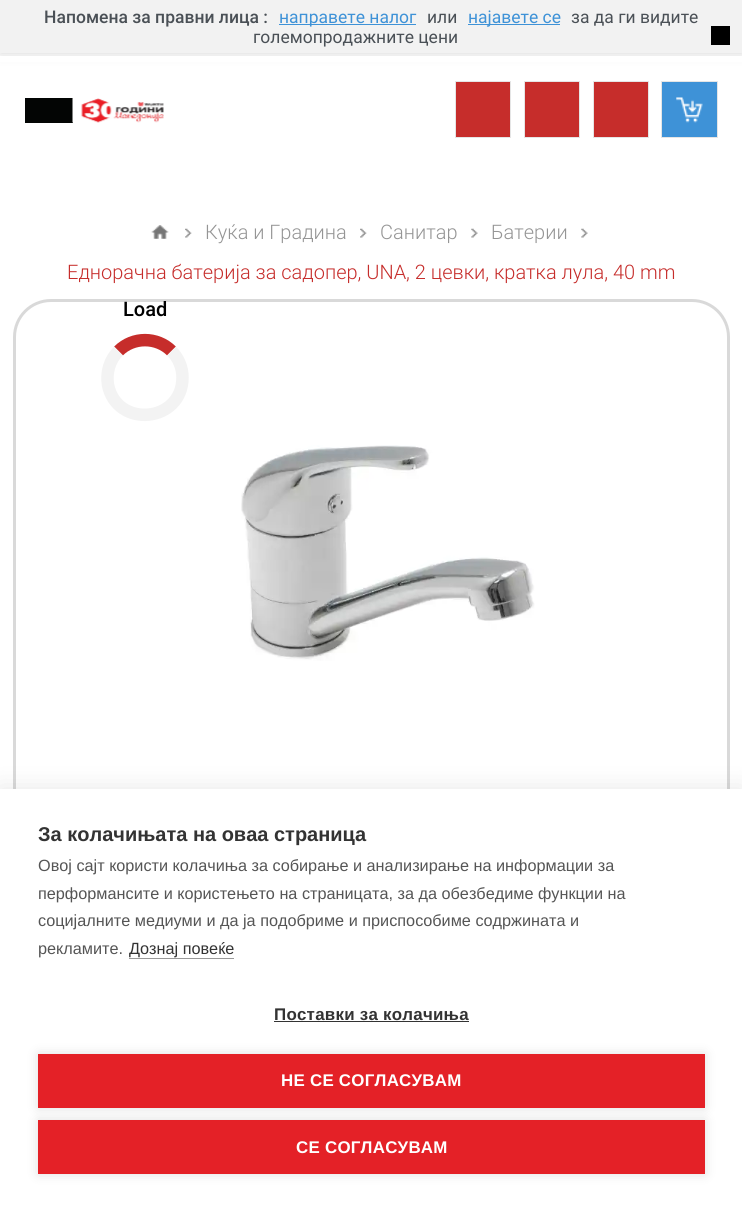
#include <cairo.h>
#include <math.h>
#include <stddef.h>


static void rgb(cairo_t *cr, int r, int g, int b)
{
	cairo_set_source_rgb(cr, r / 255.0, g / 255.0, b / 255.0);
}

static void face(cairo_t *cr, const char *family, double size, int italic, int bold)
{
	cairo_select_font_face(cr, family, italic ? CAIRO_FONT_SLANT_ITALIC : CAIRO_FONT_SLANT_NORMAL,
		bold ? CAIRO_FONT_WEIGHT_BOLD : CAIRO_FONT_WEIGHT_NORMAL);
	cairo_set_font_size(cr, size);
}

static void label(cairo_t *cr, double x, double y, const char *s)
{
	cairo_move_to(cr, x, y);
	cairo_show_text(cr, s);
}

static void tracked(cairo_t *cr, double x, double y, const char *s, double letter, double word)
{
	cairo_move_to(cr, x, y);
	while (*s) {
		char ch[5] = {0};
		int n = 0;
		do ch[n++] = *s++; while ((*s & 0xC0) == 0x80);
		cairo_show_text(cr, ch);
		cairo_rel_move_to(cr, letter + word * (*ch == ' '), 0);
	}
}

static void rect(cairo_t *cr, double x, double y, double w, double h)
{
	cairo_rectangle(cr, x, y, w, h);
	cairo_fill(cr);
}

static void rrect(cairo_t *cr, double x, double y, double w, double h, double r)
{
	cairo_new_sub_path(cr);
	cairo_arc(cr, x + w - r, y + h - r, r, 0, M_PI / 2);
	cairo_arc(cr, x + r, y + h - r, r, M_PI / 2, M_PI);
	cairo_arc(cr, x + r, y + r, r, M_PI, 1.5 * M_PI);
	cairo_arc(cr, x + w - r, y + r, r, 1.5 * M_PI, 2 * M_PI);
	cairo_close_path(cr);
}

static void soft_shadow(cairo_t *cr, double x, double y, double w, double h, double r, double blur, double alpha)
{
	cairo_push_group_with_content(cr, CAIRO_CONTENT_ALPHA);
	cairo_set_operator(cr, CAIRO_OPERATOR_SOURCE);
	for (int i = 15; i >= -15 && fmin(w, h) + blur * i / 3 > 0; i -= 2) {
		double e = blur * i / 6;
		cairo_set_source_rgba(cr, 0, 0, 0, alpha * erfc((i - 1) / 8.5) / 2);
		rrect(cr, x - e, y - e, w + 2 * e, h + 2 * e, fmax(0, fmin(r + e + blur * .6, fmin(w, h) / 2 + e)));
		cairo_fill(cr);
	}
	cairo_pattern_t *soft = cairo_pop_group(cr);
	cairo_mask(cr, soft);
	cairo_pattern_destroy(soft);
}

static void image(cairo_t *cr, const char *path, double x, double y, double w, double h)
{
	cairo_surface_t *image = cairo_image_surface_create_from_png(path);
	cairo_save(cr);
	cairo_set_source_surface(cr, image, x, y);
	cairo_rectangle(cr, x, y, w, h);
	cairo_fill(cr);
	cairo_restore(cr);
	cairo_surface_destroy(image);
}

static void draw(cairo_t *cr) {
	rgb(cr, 255, 255, 255);
	cairo_paint(cr);
	rgb(cr, 0, 0, 0);
	soft_shadow(cr, 0, 0, 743, 53, 0, 6, 0.17);
	rgb(cr, 242, 242, 242);
	rect(cr, 0, 0, 742, 53);
	face(cr, "Roboto Medium", 17.5, 0, 0);
	rgb(cr, 74, 80, 86);
	label(cr, 44, 23, "Напомена за правни лица :");
	rgb(cr, 62, 146, 215);
	rect(cr, 279, 24, 137, 1);
	face(cr, "Roboto", 17.5, 0, 0);
	label(cr, 279, 23, "направете налог");
	rgb(cr, 74, 80, 86);
	label(cr, 427, 23, "или");
	rgb(cr, 62, 146, 215);
	rect(cr, 468, 24, 92, 1);
	label(cr, 468, 23, "најавете се");
	rgb(cr, 74, 80, 86);
	label(cr, 571, 23, "за да ги видите");
	label(cr, 253, 43, "големопродажните цени");
	rgb(cr, 0, 0, 0);
	rect(cr, 711, 26, 19, 19);
	rgb(cr, 255, 255, 255);
	rect(cr, 0, 56, 742, 6);
	rgb(cr, 3, 5, 4);
	rect(cr, 25, 98, 48, 25);
	image(cr, "image0.png", 72, 98, 92, 25);
	rgb(cr, 198, 45, 43);
	cairo_rectangle(cr, 455.5, 81.5, 55, 56);
	cairo_fill_preserve(cr);
	rgb(cr, 229, 229, 229);
	cairo_set_line_width(cr, 1);
	cairo_stroke(cr);
	rgb(cr, 198, 45, 43);
	cairo_rectangle(cr, 524.5, 81.5, 55, 56);
	cairo_fill_preserve(cr);
	rgb(cr, 229, 229, 229);
	cairo_stroke(cr);
	rgb(cr, 198, 45, 43);
	cairo_rectangle(cr, 593.5, 81.5, 55, 56);
	cairo_fill_preserve(cr);
	rgb(cr, 229, 229, 229);
	cairo_stroke(cr);
	rgb(cr, 62, 146, 215);
	rect(cr, 662, 82, 55, 55);
	image(cr, "image1.png", 676, 97, 27, 26);
	cairo_rectangle(cr, 661.5, 81.5, 56, 56);
	rgb(cr, 229, 229, 229);
	cairo_stroke(cr);
	image(cr, "image2.png", 151, 225, 18, 14);
	image(cr, "image3.png", 185, 228, 7, 10);
	face(cr, "Roboto Light", 20, 0, 0);
	rgb(cr, 149, 149, 149);
	label(cr, 205, 239, "Куќа и Градина");
	image(cr, "image3.png", 360, 228, 7, 10);
	label(cr, 380, 239, "Санитар");
	image(cr, "image4.png", 471, 228, 7, 10);
	label(cr, 491, 239, "Батерии");
	image(cr, "image4.png", 581, 228, 7, 10);
	rgb(cr, 198, 45, 43);
	label(cr, 67, 279, "Еднорачна батерија за садопер, UNA, 2 цевки, кратка лула, 40 mm");
	rrect(cr, 14.5, 300.5, 714, 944, 36.5);
	rgb(cr, 217, 217, 217);
	cairo_set_line_width(cr, 3);
	cairo_stroke(cr);
	image(cr, "image5.png", 241, 445, 294, 216);
	face(cr, "Roboto Medium", 20, 0, 0);
	rgb(cr, 0, 0, 0);
	label(cr, 123, 316, "Load");
	cairo_new_path(cr);
	cairo_move_to(cr, 118.5, 351);
	cairo_curve_to(cr, 133, 336.5, 157, 336.5, 171.5, 351);
	rgb(cr, 198, 45, 43);
	cairo_set_line_width(cr, 12.5);
	cairo_stroke(cr);
	cairo_new_path(cr);
	cairo_move_to(cr, 171.5, 351);
	cairo_curve_to(cr, 178.5, 358, 182.5, 367.5, 182.5, 377.5);
	cairo_curve_to(cr, 182.5, 422.5, 117, 429, 108, 385);
	cairo_curve_to(cr, 106, 372.5, 109.5, 360, 118.5, 351);
	rgb(cr, 243, 243, 243);
	cairo_stroke(cr);
	rgb(cr, 0, 0, 0);
	soft_shadow(cr, 0, 789, 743, 416, 0, 12.5, 0.1);
	rgb(cr, 255, 255, 255);
	rect(cr, 0, 789, 742, 416);
	face(cr, "Liberation Sans", 20, 0, 1);
	rgb(cr, 51, 51, 51);
	label(cr, 38, 841, "За колачињата на оваа страница");
	face(cr, "Liberation Sans", 16.25, 0, 0);
	rgb(cr, 85, 85, 85);
	label(cr, 38, 871, "Овој сајт користи колачиња за собирање и анализирање на информации за");
	label(cr, 38, 899, "перформансите и користењето на страницата, за да обезбедиме функции на");
	label(cr, 38, 926, "социјалните медиуми и да ја подобриме и приспособиме содржината и");
	label(cr, 38, 954, "рекламите.");
	rgb(cr, 51, 51, 51);
	label(cr, 129, 954, "Дознај повеќе");
	rgb(cr, 153, 153, 153);
	rect(cr, 129, 958, 105, 1);
	face(cr, "Liberation Sans", 16.9, 0, 1);
	rgb(cr, 51, 51, 51);
	tracked(cr, 274, 1020, "Поставки за колачиња", 0.25, 0);
	rect(cr, 274, 1021, 195, 1);
	rgb(cr, 0, 0, 0);
	soft_shadow(cr, 38, 1054, 667, 54, 0, 6, 0.12);
	rgb(cr, 228, 33, 39);
	rect(cr, 38, 1054, 667, 54);
	rgb(cr, 255, 255, 255);
	tracked(cr, 281, 1086, "НE СЕ СОГЛАСУВАМ", 0.25, 0);
	rgb(cr, 0, 0, 0);
	soft_shadow(cr, 38, 1120, 667, 54, 0, 6, 0.12);
	rgb(cr, 228, 33, 39);
	rect(cr, 38, 1120, 667, 54);
	rgb(cr, 255, 255, 255);
	tracked(cr, 296, 1153, "СЕ СОГЛАСУВАМ", 0.25, 0);
}

int main(void) {
	cairo_surface_t *surface = cairo_image_surface_create(CAIRO_FORMAT_RGB24, 742, 1205);
	cairo_t *cr = cairo_create(surface);
	cairo_font_options_t *options = cairo_font_options_create();
	cairo_font_options_set_hint_metrics(options, CAIRO_HINT_METRICS_OFF);
	cairo_font_options_set_hint_style(options, CAIRO_HINT_STYLE_NONE);
	cairo_set_font_options(cr, options);
	cairo_set_miter_limit(cr, 4);
	draw(cr);
	cairo_surface_write_to_png(surface, "render.png");
	cairo_font_options_destroy(options);
	cairo_destroy(cr);
	cairo_surface_destroy(surface);
	return 0;
}
